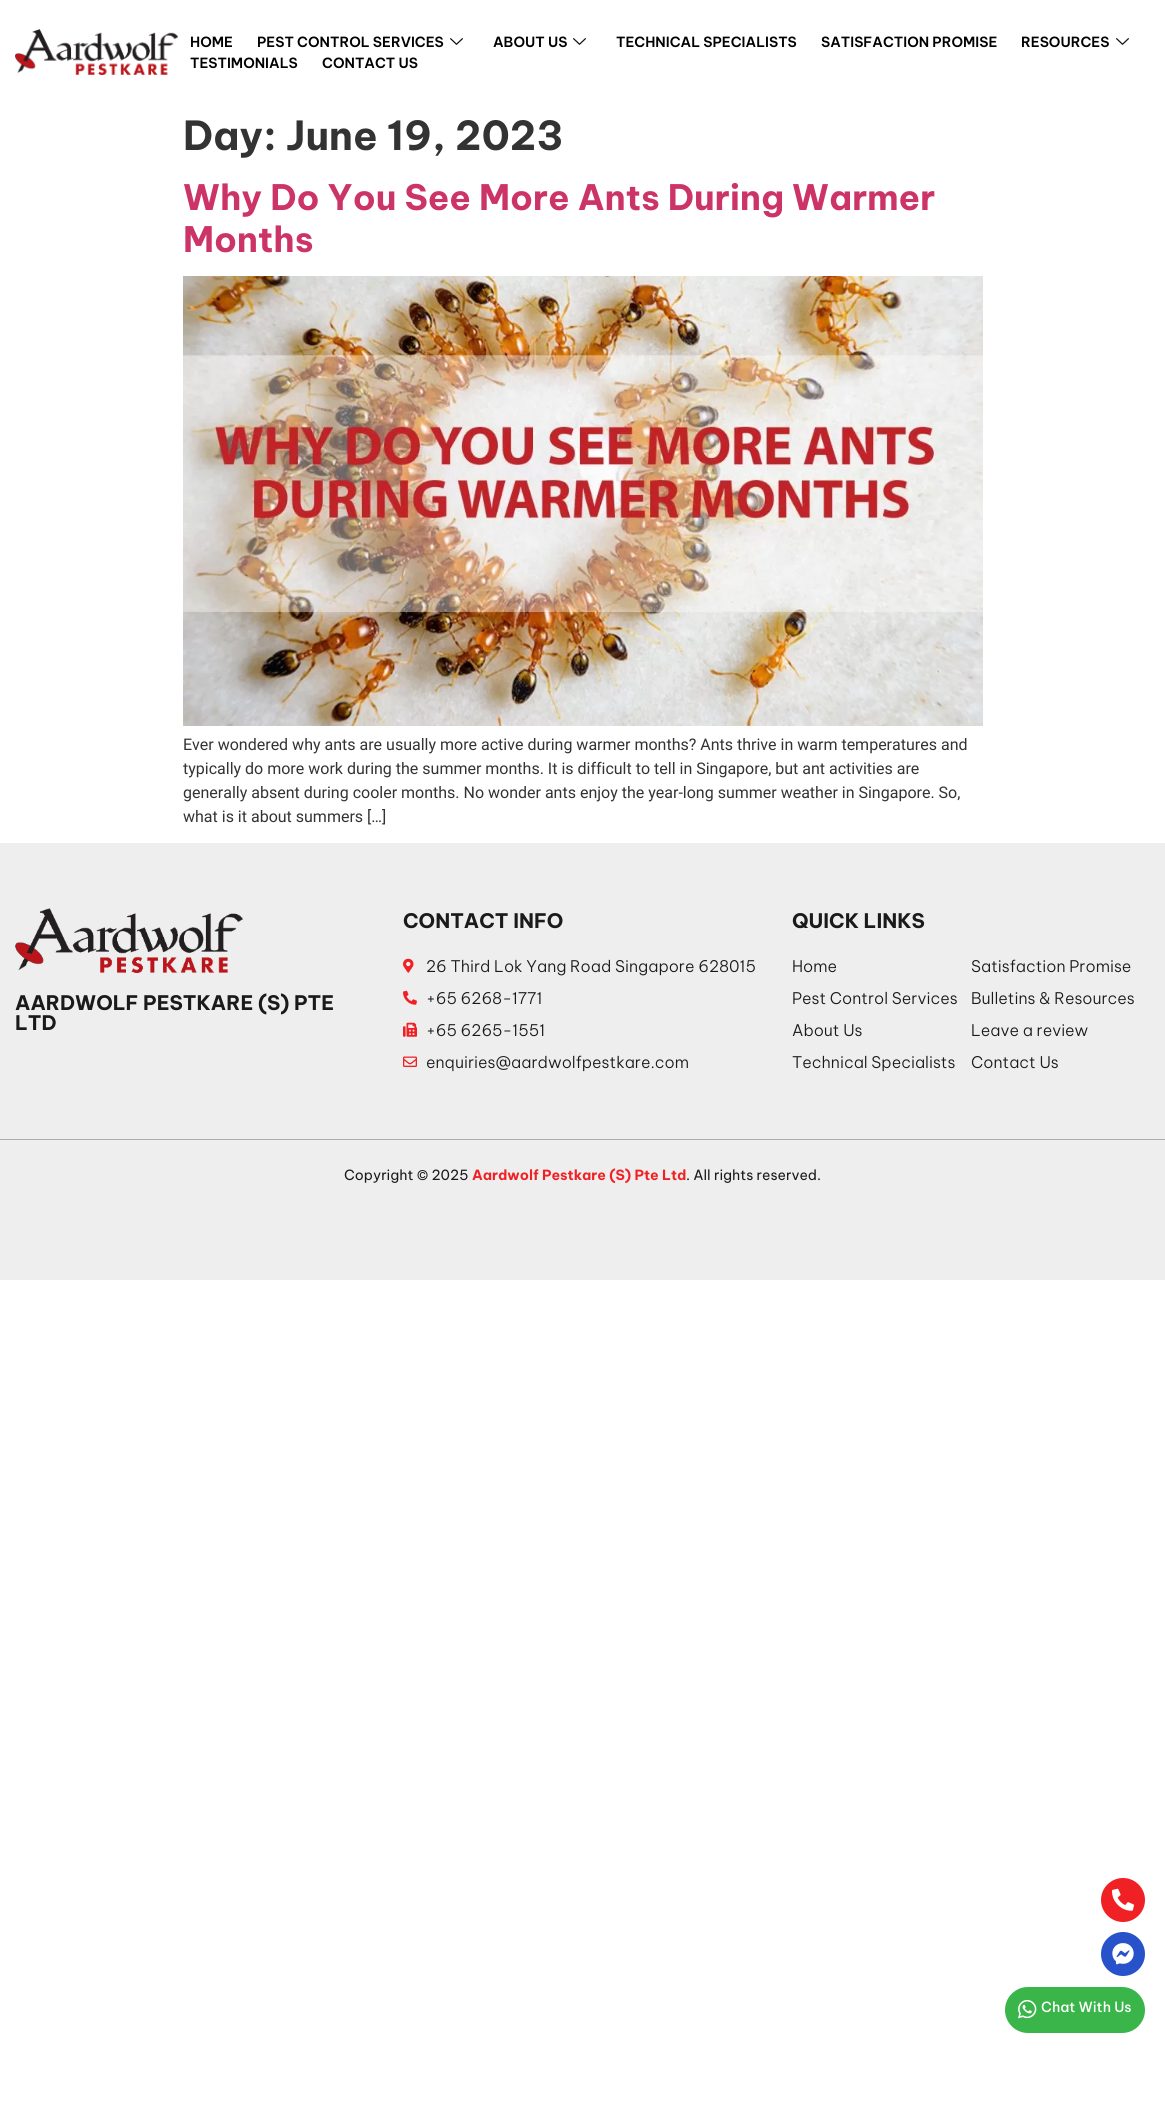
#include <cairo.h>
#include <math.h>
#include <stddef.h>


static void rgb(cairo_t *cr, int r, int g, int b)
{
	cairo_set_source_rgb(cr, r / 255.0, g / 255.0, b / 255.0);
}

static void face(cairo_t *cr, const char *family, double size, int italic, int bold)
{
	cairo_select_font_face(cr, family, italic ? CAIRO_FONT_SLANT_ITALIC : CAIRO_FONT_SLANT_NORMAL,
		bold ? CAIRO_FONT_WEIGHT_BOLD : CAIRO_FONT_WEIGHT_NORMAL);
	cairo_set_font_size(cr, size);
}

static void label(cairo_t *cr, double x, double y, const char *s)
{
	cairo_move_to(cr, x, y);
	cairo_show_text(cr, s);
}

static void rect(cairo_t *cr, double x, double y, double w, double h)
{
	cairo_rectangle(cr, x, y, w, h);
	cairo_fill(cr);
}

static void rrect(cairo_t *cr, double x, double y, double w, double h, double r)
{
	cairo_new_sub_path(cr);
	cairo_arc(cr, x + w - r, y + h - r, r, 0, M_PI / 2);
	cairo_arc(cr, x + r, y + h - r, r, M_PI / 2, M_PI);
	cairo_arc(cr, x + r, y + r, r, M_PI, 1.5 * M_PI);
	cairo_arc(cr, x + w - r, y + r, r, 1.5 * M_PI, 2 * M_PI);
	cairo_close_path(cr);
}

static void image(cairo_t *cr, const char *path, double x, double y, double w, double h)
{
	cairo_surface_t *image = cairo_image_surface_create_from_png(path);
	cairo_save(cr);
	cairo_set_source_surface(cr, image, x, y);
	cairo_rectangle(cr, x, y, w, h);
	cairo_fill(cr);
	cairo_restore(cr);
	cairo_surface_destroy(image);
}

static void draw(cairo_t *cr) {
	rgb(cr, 255, 255, 255);
	cairo_paint(cr);
	image(cr, "image0.png", 15, 29, 163, 46);
	face(cr, "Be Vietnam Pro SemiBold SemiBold", 14, 0, 0);
	rgb(cr, 0, 0, 0);
	label(cr, 190, 47, "HOME");
	label(cr, 257, 47, "PEST CONTROL SERVICES");
	image(cr, "image1.png", 450, 38, 13, 7);
	label(cr, 493, 47, "ABOUT US");
	image(cr, "image1.png", 573, 38, 13, 7);
	label(cr, 616, 47, "TECHNICAL SPECIALISTS");
	label(cr, 821, 47, "SATISFACTION PROMISE");
	label(cr, 1021, 47, "RESOURCES");
	image(cr, "image1.png", 1116, 38, 13, 7);
	label(cr, 190, 68, "TESTIMONIALS");
	label(cr, 322, 68, "CONTACT US");
	face(cr, "Be Vietnam Pro", 40, 0, 1);
	rgb(cr, 51, 51, 51);
	label(cr, 183, 150, "Day: June 19, 2023");
	face(cr, "Be Vietnam Pro", 35, 0, 1);
	rgb(cr, 204, 51, 102);
	label(cr, 183, 210, "Why Do You See More Ants During Warmer");
	label(cr, 183, 252, "Months");
	image(cr, "image2.png", 183, 276, 800, 450);
	face(cr, "Roboto", 16, 0, 0);
	rgb(cr, 51, 51, 51);
	label(cr, 183, 750, "Ever wondered why ants are usually more active during warmer months? Ants thrive in warm temperatures and");
	label(cr, 183, 774, "typically do more work during the summer months. It is difficult to tell in Singapore, but ant activities are");
	label(cr, 183, 798, "generally absent during cooler months. No wonder ants enjoy the year-long summer weather in Singapore. So,");
	label(cr, 183, 822, "what is it about summers […]");
	rgb(cr, 238, 238, 238);
	rect(cr, 0, 843, 1165, 296);
	rgb(cr, 172, 172, 172);
	rect(cr, 0, 1139, 1165, 1);
	image(cr, "image3.png", 15, 908, 228, 65);
	face(cr, "Be Vietnam Pro", 20, 0, 1);
	rgb(cr, 26, 26, 26);
	label(cr, 15, 1010, "AARDWOLF PESTKARE (S) PTE");
	label(cr, 15, 1030, "LTD");
	label(cr, 403, 928, "CONTACT INFO");
	image(cr, "image4.png", 403, 958, 11, 15);
	face(cr, "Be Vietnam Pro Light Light", 16, 0, 0);
	label(cr, 426, 972, "26 Third Lok Yang Road Singapore 628015");
	image(cr, "image5.png", 403, 990, 14, 15);
	label(cr, 426, 1004, "+65 6268-1771");
	image(cr, "image6.png", 403, 1022, 14, 15);
	label(cr, 426, 1036, "+65 6265-1551");
	image(cr, "image7.png", 403, 1056, 14, 11);
	label(cr, 426, 1068, "enquiries@aardwolfpestkare.com");
	face(cr, "Be Vietnam Pro", 20, 0, 1);
	label(cr, 792, 928, "QUICK LINKS");
	face(cr, "Be Vietnam Pro Light Light", 16, 0, 0);
	label(cr, 792, 972, "Home");
	label(cr, 792, 1004, "Pest Control Services");
	label(cr, 792, 1036, "About Us");
	label(cr, 792, 1068, "Technical Specialists");
	label(cr, 971, 972, "Satisfaction Promise");
	label(cr, 971, 1004, "Bulletins & Resources");
	label(cr, 971, 1036, "Leave a review");
	label(cr, 971, 1068, "Contact Us");
	rgb(cr, 238, 238, 238);
	rect(cr, 0, 1140, 1165, 140);
	face(cr, "Be Vietnam Pro", 14, 0, 0);
	rgb(cr, 26, 26, 26);
	label(cr, 344, 1180, "Copyright © 2025");
	face(cr, "Be Vietnam Pro", 14, 0, 1);
	rgb(cr, 240, 33, 37);
	label(cr, 472, 1180, "Aardwolf Pestkare (S) Pte Ltd");
	face(cr, "Be Vietnam Pro", 14, 0, 0);
	rgb(cr, 26, 26, 26);
	label(cr, 686, 1180, ". All rights reserved.");
	rgb(cr, 240, 33, 37);
	cairo_new_path(cr);
	cairo_arc(cr, 1123, 1900, 22, 0, 2 * M_PI);
	cairo_fill(cr);
	image(cr, "image8.png", 1112, 1888, 22, 23);
	rgb(cr, 40, 82, 202);
	cairo_arc(cr, 1123, 1954, 22, 0, 2 * M_PI);
	cairo_fill(cr);
	image(cr, "image9.png", 1112, 1943, 22, 22);
	rgb(cr, 57, 181, 74);
	rrect(cr, 1005, 1987, 140, 46, 23);
	cairo_fill(cr);
	image(cr, "image10.png", 1018, 1999, 19, 20);
	face(cr, "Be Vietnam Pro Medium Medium", 14, 0, 0);
	rgb(cr, 255, 255, 255);
	label(cr, 1041, 2012, "Chat With Us");
}

int main(void) {
	cairo_surface_t *surface = cairo_image_surface_create(CAIRO_FORMAT_RGB24, 1165, 2116);
	cairo_t *cr = cairo_create(surface);
	cairo_font_options_t *options = cairo_font_options_create();
	cairo_font_options_set_hint_metrics(options, CAIRO_HINT_METRICS_OFF);
	cairo_font_options_set_hint_style(options, CAIRO_HINT_STYLE_NONE);
	cairo_set_font_options(cr, options);
	cairo_set_miter_limit(cr, 4);
	draw(cr);
	cairo_surface_write_to_png(surface, "render.png");
	cairo_font_options_destroy(options);
	cairo_destroy(cr);
	cairo_surface_destroy(surface);
	return 0;
}
